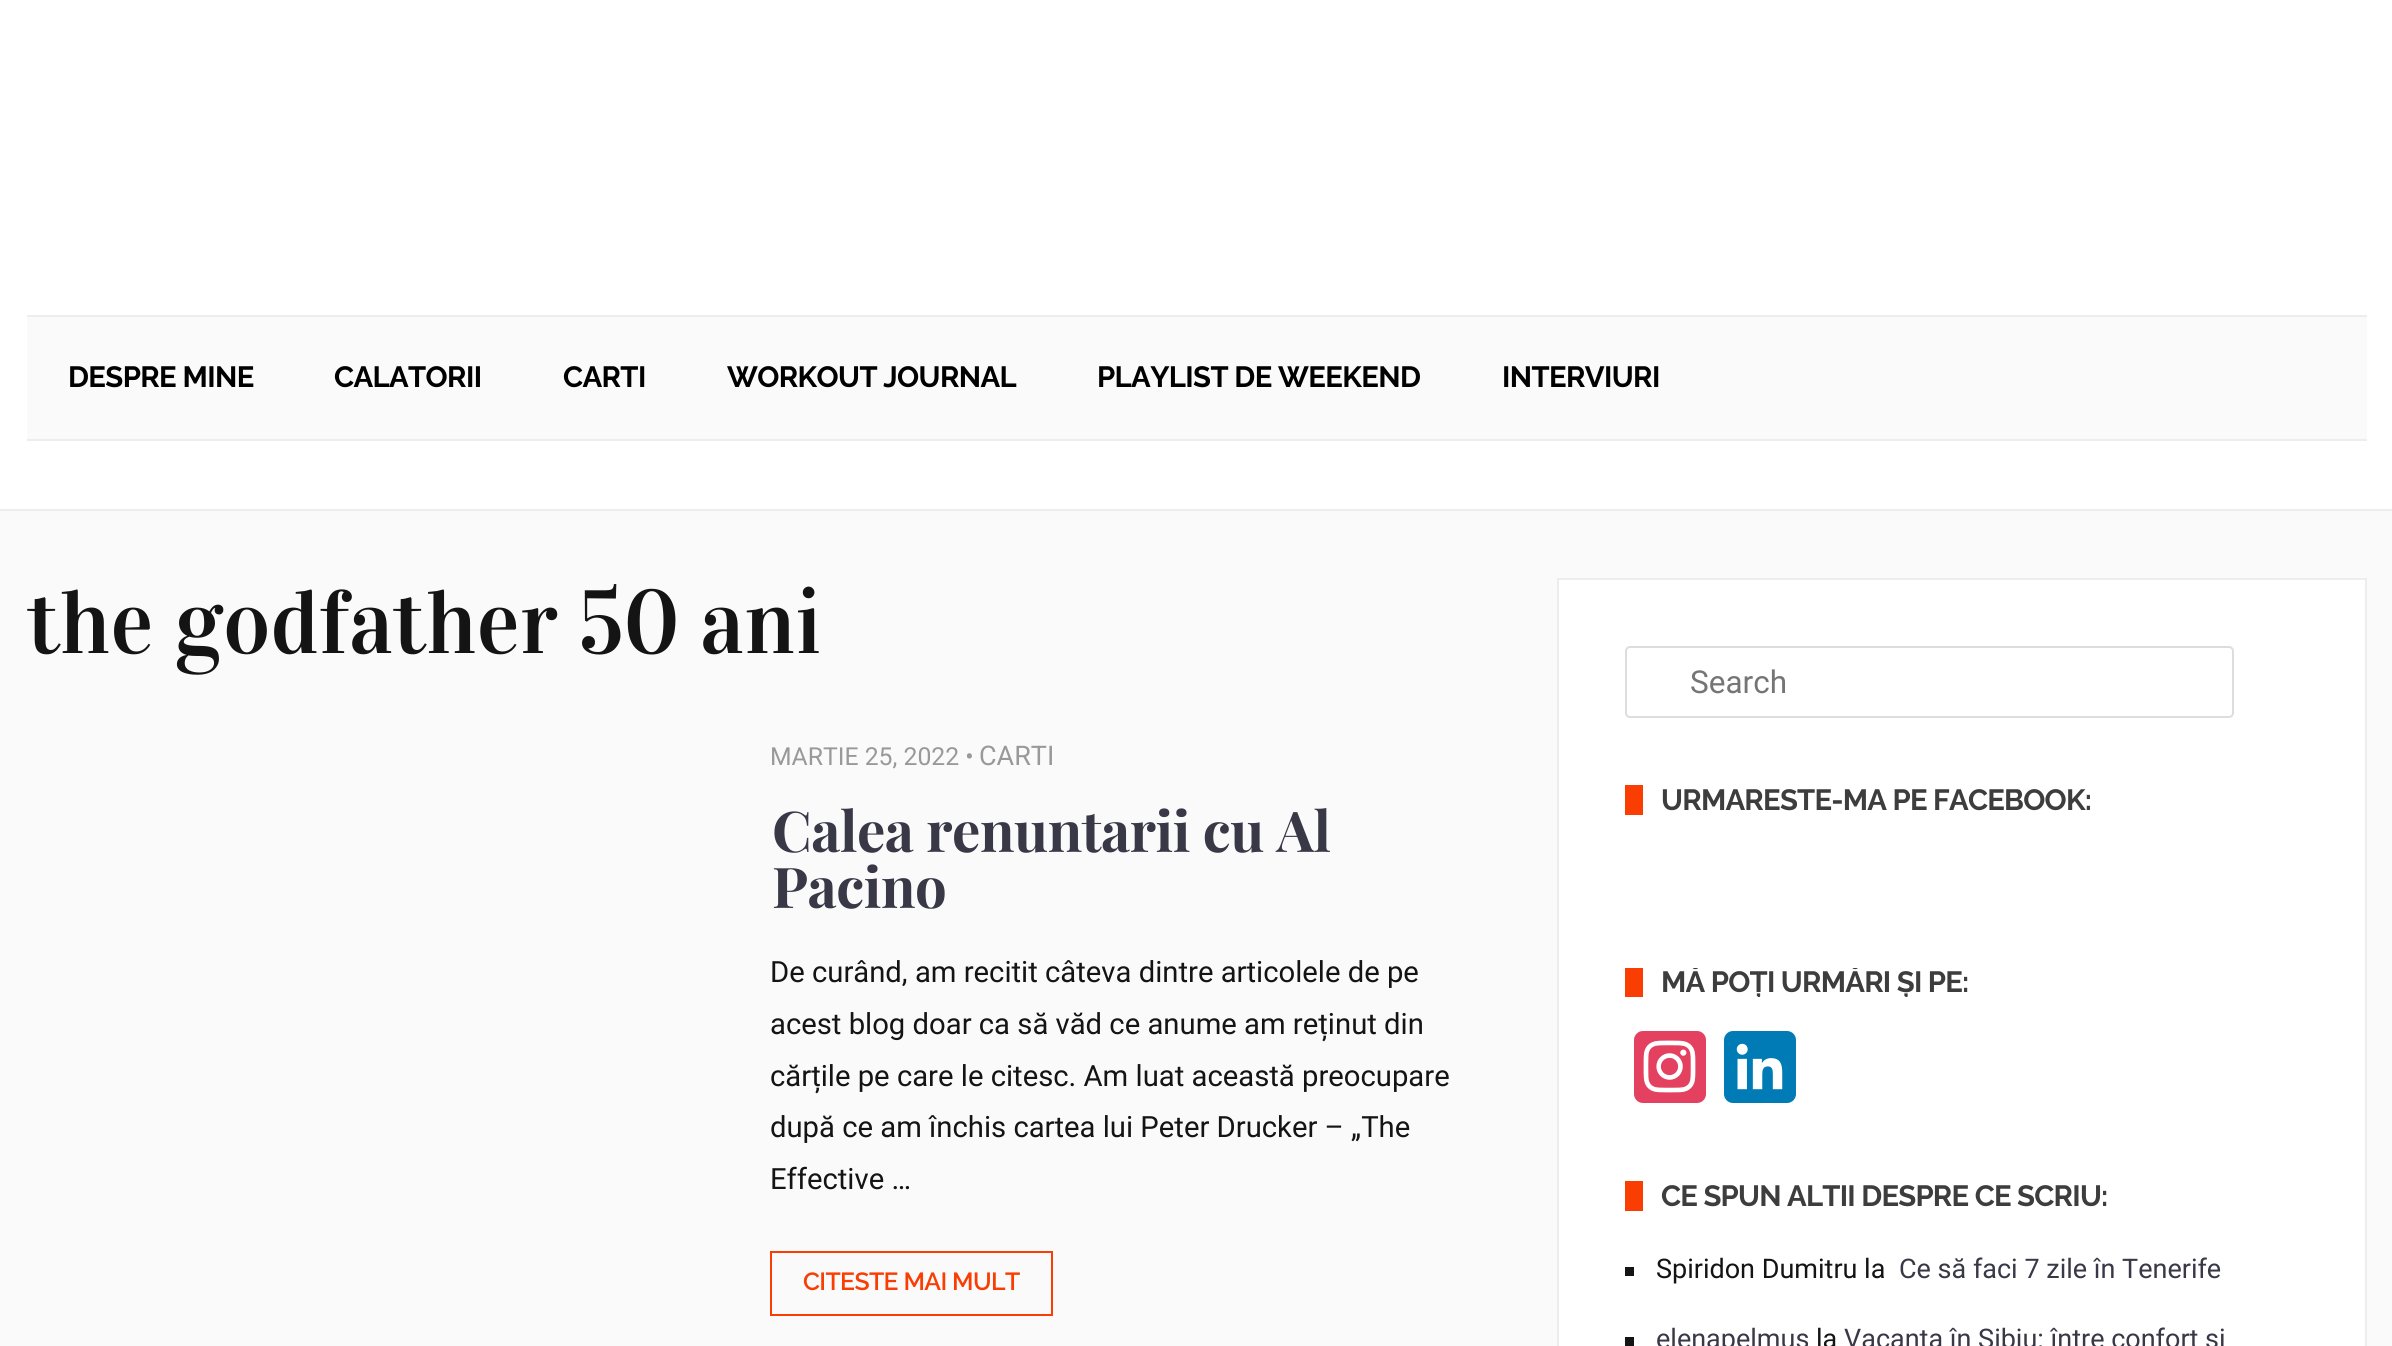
#include <cairo.h>
#include <math.h>
#include <stddef.h>


static void rgb(cairo_t *cr, int r, int g, int b)
{
	cairo_set_source_rgb(cr, r / 255.0, g / 255.0, b / 255.0);
}

static void face(cairo_t *cr, const char *family, double size, int italic, int bold)
{
	cairo_select_font_face(cr, family, italic ? CAIRO_FONT_SLANT_ITALIC : CAIRO_FONT_SLANT_NORMAL,
		bold ? CAIRO_FONT_WEIGHT_BOLD : CAIRO_FONT_WEIGHT_NORMAL);
	cairo_set_font_size(cr, size);
}

static void label(cairo_t *cr, double x, double y, const char *s)
{
	cairo_move_to(cr, x, y);
	cairo_show_text(cr, s);
}

static void tracked(cairo_t *cr, double x, double y, const char *s, double letter, double word)
{
	cairo_move_to(cr, x, y);
	while (*s) {
		char ch[5] = {0};
		int n = 0;
		do ch[n++] = *s++; while ((*s & 0xC0) == 0x80);
		cairo_show_text(cr, ch);
		cairo_rel_move_to(cr, letter + word * (*ch == ' '), 0);
	}
}

static void rect(cairo_t *cr, double x, double y, double w, double h)
{
	cairo_rectangle(cr, x, y, w, h);
	cairo_fill(cr);
}

static void rrect(cairo_t *cr, double x, double y, double w, double h, double r)
{
	cairo_new_sub_path(cr);
	cairo_arc(cr, x + w - r, y + h - r, r, 0, M_PI / 2);
	cairo_arc(cr, x + r, y + h - r, r, M_PI / 2, M_PI);
	cairo_arc(cr, x + r, y + r, r, M_PI, 1.5 * M_PI);
	cairo_arc(cr, x + w - r, y + r, r, 1.5 * M_PI, 2 * M_PI);
	cairo_close_path(cr);
}

static void image(cairo_t *cr, const char *path, double x, double y, double w, double h)
{
	cairo_surface_t *image = cairo_image_surface_create_from_png(path);
	cairo_save(cr);
	cairo_set_source_surface(cr, image, x, y);
	cairo_rectangle(cr, x, y, w, h);
	cairo_fill(cr);
	cairo_restore(cr);
	cairo_surface_destroy(image);
}

static void draw(cairo_t *cr) {
	rgb(cr, 250, 250, 250);
	cairo_paint(cr);
	rgb(cr, 255, 255, 255);
	rect(cr, 0, 0, 2392, 509);
	rgb(cr, 237, 237, 237);
	rect(cr, 0, 509, 2392, 2);
	rgb(cr, 250, 250, 250);
	rect(cr, 27, 317, 2340, 122);
	rgb(cr, 237, 237, 237);
	rect(cr, 27, 315, 2340, 2);
	rect(cr, 27, 439, 2340, 2);
	face(cr, "Raleway", 29.25, 0, 1);
	rgb(cr, 0, 0, 0);
	tracked(cr, 68, 387, "DESPRE MINE", -0.6, 0);
	tracked(cr, 334, 387, "CALATORII", -0.6, 0);
	tracked(cr, 563, 387, "CARTI", -0.6, 0);
	tracked(cr, 727, 387, "WORKOUT JOURNAL", -0.6, 0);
	tracked(cr, 1097, 387, "PLAYLIST DE WEEKEND", -0.6, 0);
	tracked(cr, 1502, 387, "INTERVIURI", -0.6, 0);
	face(cr, "Vidaloka", 90, 0, 0);
	rgb(cr, 20, 20, 20);
	label(cr, 27, 653, "the godfather 50 ani");
	face(cr, "Roboto", 24.75, 0, 0);
	rgb(cr, 153, 153, 153);
	label(cr, 770, 765, "MARTIE 25, 2022 •");
	face(cr, "Roboto", 27, 0, 0);
	label(cr, 979, 765, "CARTI");
	face(cr, "Playfair Display", 56.25, 0, 1);
	rgb(cr, 57, 56, 71);
	tracked(cr, 772, 852, "Calea renuntarii cu Al", -0.45, 0);
	tracked(cr, 772, 908, "Pacino", -0.45, 0);
	face(cr, "Roboto", 29.25, 0, 0);
	rgb(cr, 20, 20, 20);
	label(cr, 770, 982, "De curând, am recitit câteva dintre articolele de pe");
	label(cr, 770, 1034, "acest blog doar ca să văd ce anume am reținut din");
	label(cr, 770, 1086, "cărțile pe care le citesc. Am luat această preocupare");
	label(cr, 770, 1137, "după ce am închis cartea lui Peter Drucker – „The");
	label(cr, 770, 1189, "Effective …");
	cairo_rectangle(cr, 771, 1252, 281, 63);
	rgb(cr, 250, 61, 3);
	cairo_stroke(cr);
	face(cr, "Raleway SemiBold", 24.75, 0, 0);
	tracked(cr, 803, 1290, "CITESTE MAI MULT", -0.6, 0);
	rgb(cr, 255, 255, 255);
	cairo_rectangle(cr, 1558, 579, 808, 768);
	cairo_fill_preserve(cr);
	rgb(cr, 237, 237, 237);
	cairo_stroke(cr);
	rrect(cr, 1626, 647, 607, 70, 4);
	rgb(cr, 221, 221, 221);
	cairo_stroke(cr);
	face(cr, "Roboto", 31.5, 0, 0);
	rgb(cr, 117, 117, 117);
	label(cr, 1690, 693, "Search");
	rgb(cr, 250, 61, 3);
	rect(cr, 1625, 785, 18, 30);
	face(cr, "Raleway", 29.25, 0, 1);
	rgb(cr, 61, 61, 61);
	tracked(cr, 1661, 810, "URMARESTE-MA PE FACEBOOK:", -0.75, 0);
	rgb(cr, 250, 61, 3);
	rect(cr, 1625, 968, 18, 29);
	cairo_save(cr);
	cairo_rectangle(cr, 1643, 968, 657, 29);
	cairo_clip(cr);
	rgb(cr, 61, 61, 61);
	tracked(cr, 1661, 992, "MĂ POȚI URMĂRI ȘI PE:", -0.75, 0);
	cairo_restore(cr);
	rgb(cr, 228, 64, 95);
	rrect(cr, 1634, 1031, 72, 72, 9);
	cairo_fill(cr);
	image(cr, "image0.png", 1643, 1040, 53, 53);
	rgb(cr, 0, 123, 181);
	rrect(cr, 1724, 1031, 72, 72, 9);
	cairo_fill(cr);
	image(cr, "image1.png", 1736, 1043, 47, 47);
	rgb(cr, 250, 61, 3);
	rect(cr, 1625, 1181, 18, 30);
	rgb(cr, 61, 61, 61);
	tracked(cr, 1661, 1206, "CE SPUN ALTII DESPRE CE SCRIU:", -0.75, 0);
	rgb(cr, 20, 20, 20);
	rect(cr, 1625, 1267, 9, 9);
	face(cr, "Roboto", 27, 0, 0);
	label(cr, 1656, 1278, "Spiridon Dumitru la");
	rgb(cr, 57, 56, 71);
	label(cr, 1899, 1278, "Ce să faci 7 zile în Tenerife");
	rgb(cr, 20, 20, 20);
	rect(cr, 1625, 1337, 9, 9);
	rgb(cr, 57, 56, 71);
	label(cr, 1656, 1348, "elenapelmus");
	rgb(cr, 20, 20, 20);
	label(cr, 1816, 1348, "la");
	rgb(cr, 57, 56, 71);
	label(cr, 1844, 1348, "Vacanța în Sibiu: între confort și");
}

int main(void) {
	cairo_surface_t *surface = cairo_image_surface_create(CAIRO_FORMAT_RGB24, 2392, 1346);
	cairo_t *cr = cairo_create(surface);
	cairo_font_options_t *options = cairo_font_options_create();
	cairo_font_options_set_hint_metrics(options, CAIRO_HINT_METRICS_OFF);
	cairo_font_options_set_hint_style(options, CAIRO_HINT_STYLE_NONE);
	cairo_set_font_options(cr, options);
	cairo_set_miter_limit(cr, 4);
	draw(cr);
	cairo_surface_write_to_png(surface, "render.png");
	cairo_font_options_destroy(options);
	cairo_destroy(cr);
	cairo_surface_destroy(surface);
	return 0;
}
